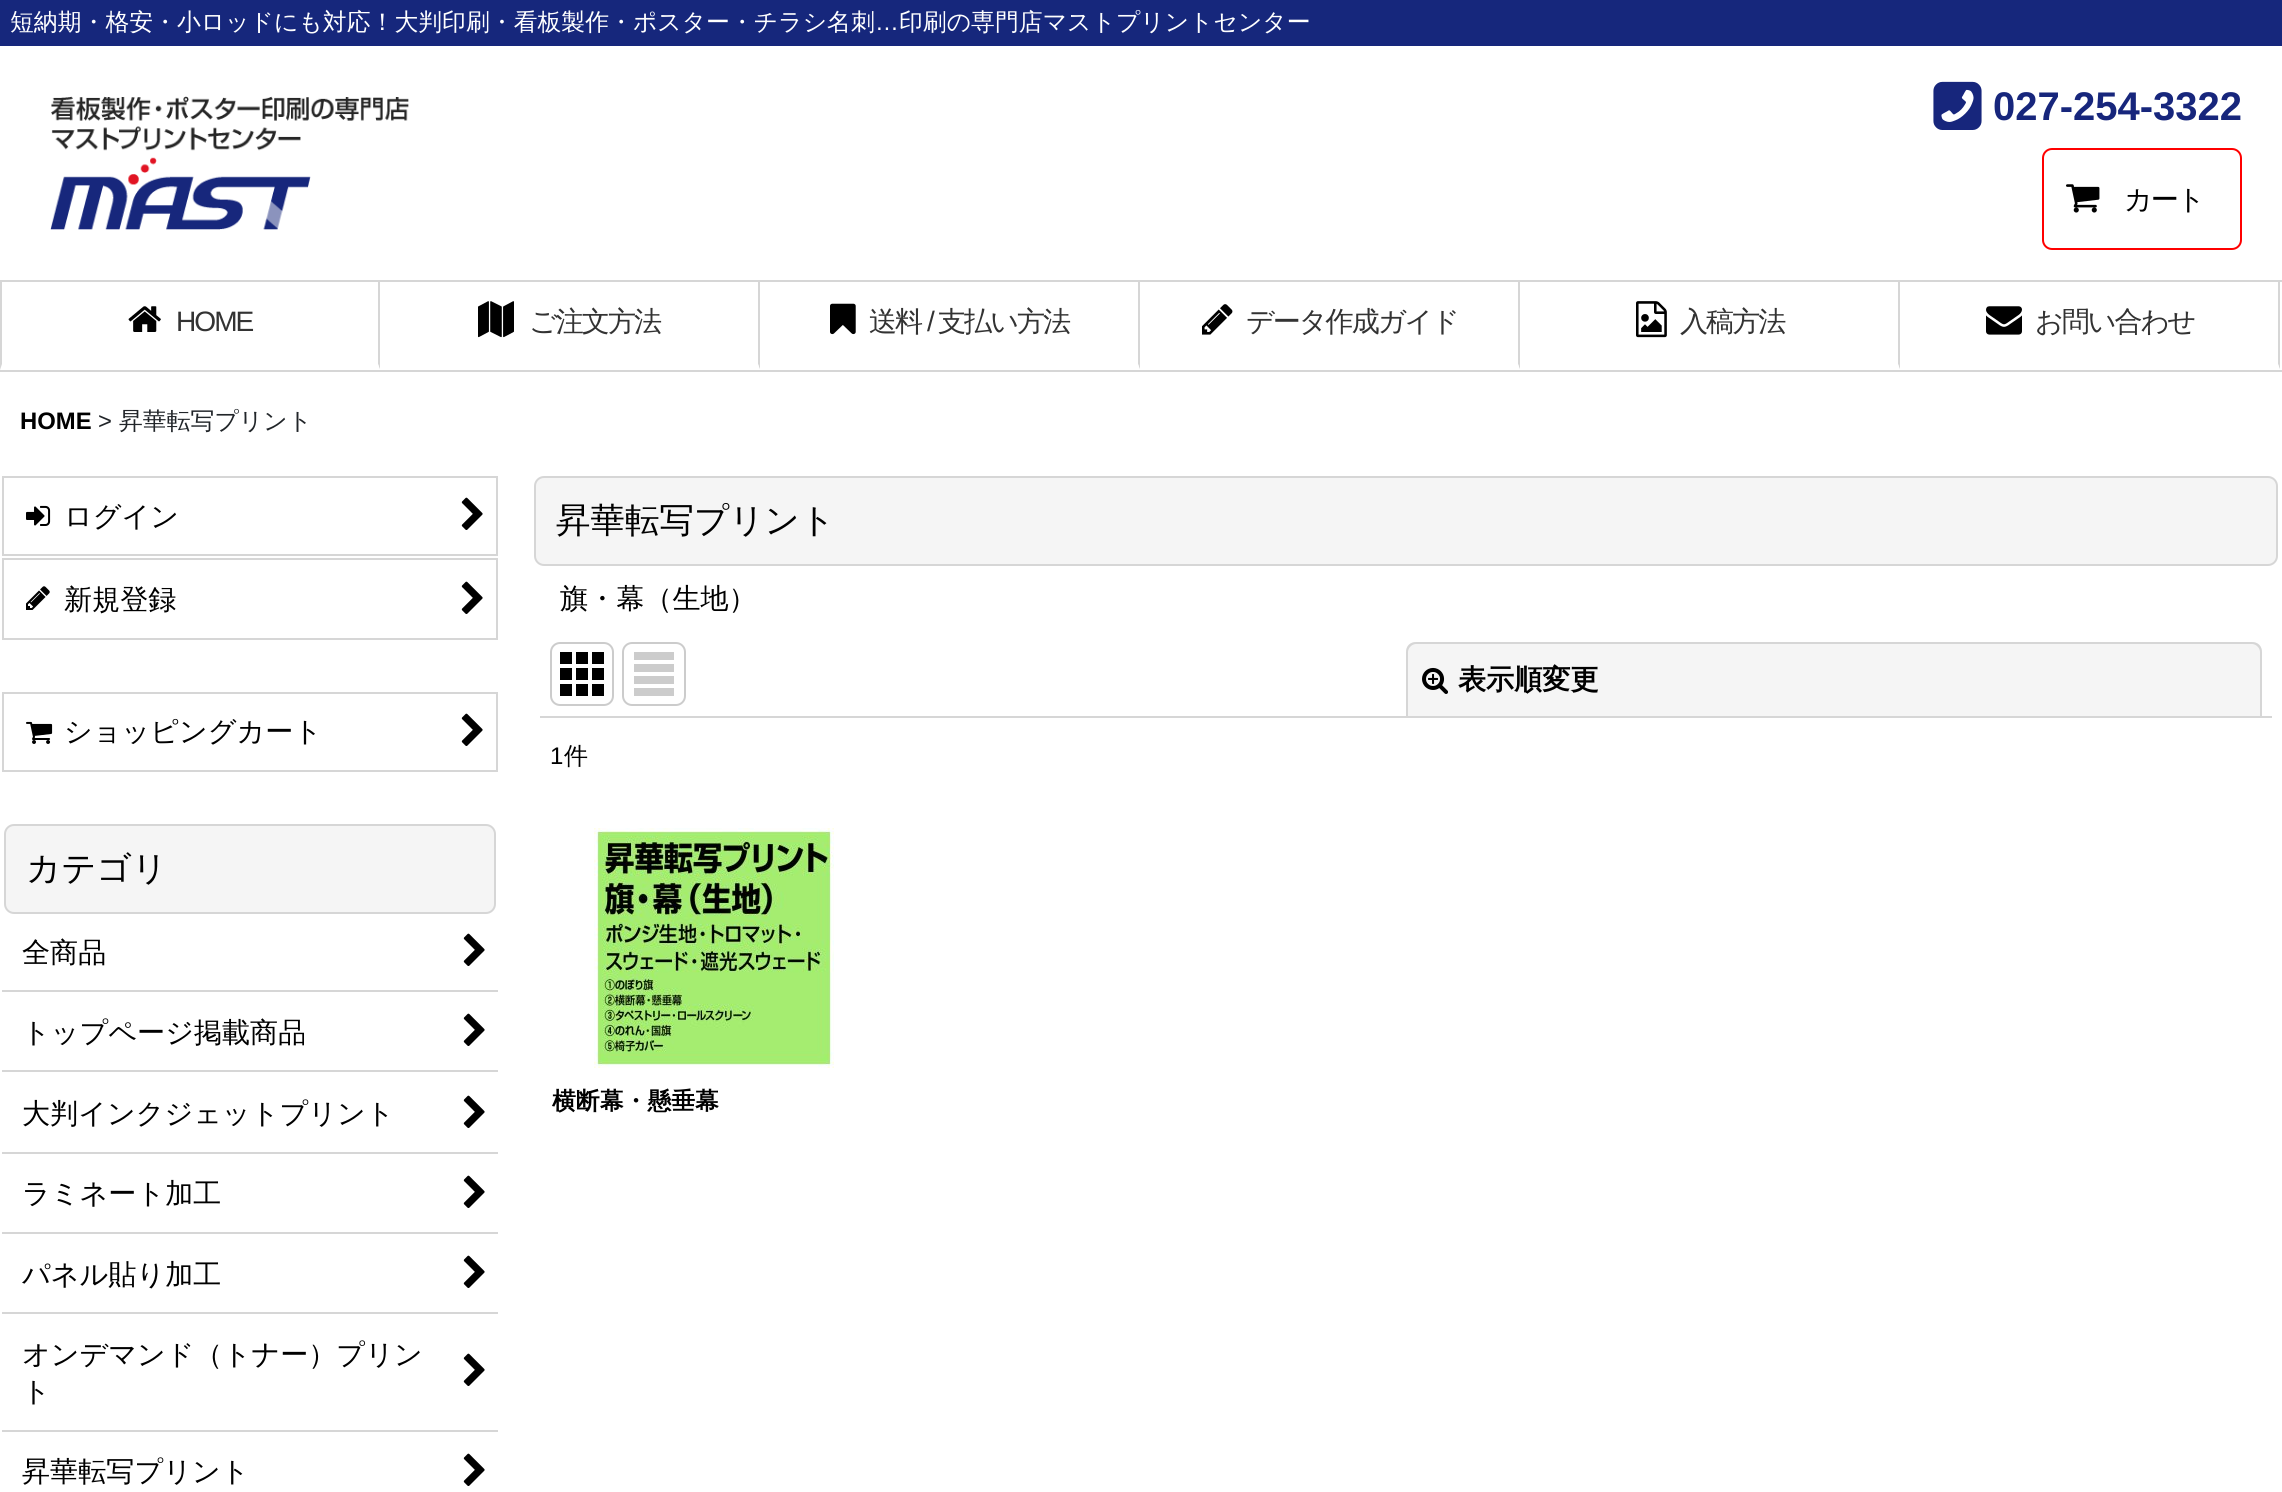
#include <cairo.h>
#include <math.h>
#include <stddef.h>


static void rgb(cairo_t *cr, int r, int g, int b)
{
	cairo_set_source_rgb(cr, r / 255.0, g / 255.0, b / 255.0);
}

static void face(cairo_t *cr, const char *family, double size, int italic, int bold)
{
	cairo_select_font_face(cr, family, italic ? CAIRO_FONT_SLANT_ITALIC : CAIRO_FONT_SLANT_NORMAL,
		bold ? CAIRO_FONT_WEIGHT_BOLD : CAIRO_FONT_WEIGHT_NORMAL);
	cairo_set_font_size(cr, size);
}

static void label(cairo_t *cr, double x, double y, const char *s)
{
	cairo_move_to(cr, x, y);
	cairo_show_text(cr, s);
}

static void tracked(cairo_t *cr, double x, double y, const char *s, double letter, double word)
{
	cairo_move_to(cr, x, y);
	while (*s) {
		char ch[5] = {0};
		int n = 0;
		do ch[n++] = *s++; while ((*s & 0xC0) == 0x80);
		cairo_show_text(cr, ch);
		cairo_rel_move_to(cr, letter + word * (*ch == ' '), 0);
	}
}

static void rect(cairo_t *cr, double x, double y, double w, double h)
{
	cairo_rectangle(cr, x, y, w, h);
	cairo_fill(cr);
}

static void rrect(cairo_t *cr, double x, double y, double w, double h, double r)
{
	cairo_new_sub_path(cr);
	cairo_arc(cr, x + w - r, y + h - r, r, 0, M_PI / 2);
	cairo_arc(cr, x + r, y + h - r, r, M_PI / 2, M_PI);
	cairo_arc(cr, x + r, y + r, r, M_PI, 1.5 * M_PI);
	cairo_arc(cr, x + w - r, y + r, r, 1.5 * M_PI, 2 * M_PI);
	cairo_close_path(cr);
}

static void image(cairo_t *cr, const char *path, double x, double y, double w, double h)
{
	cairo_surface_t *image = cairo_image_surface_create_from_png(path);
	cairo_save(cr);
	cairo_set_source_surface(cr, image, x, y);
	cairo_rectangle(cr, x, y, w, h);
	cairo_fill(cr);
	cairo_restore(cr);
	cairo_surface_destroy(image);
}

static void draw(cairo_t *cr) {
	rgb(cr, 255, 255, 255);
	cairo_paint(cr);
	rgb(cr, 214, 214, 214);
	rect(cr, 0, 280, 2282, 2);
	rgb(cr, 22, 39, 124);
	rect(cr, 0, 0, 2282, 46);
	face(cr, "WenQuanYi Zen Hei Medium", 23.85, 0, 0);
	rgb(cr, 255, 255, 255);
	label(cr, 10, 30, "短納期・格安・小ロッドにも対応！大判印刷・看板製作・ポスター・チラシ名刺");
	face(cr, "Liberation Sans", 23.85, 0, 0);
	label(cr, 875, 30, "…");
	face(cr, "WenQuanYi Zen Hei Medium", 23.85, 0, 0);
	label(cr, 899, 30, "印刷の専門店マストプリントセンター");
	image(cr, "image0.png", 50, 96, 359, 134);
	image(cr, "image1.png", 1933, 81, 49, 49);
	face(cr, "Liberation Sans", 40, 0, 1);
	rgb(cr, 23, 38, 124);
	label(cr, 1993, 120, "027-254-3322");
	rrect(cr, 2043, 149, 198, 100, 9);
	rgb(cr, 255, 0, 0);
	cairo_stroke(cr);
	image(cr, "image2.png", 2066, 184, 34, 29);
	face(cr, "WenQuanYi Zen Hei Medium", 28.1, 0, 0);
	rgb(cr, 0, 0, 0);
	tracked(cr, 2124, 209, "カート", -2, 0);
	rgb(cr, 214, 214, 214);
	rect(cr, 0, 370, 2282, 2);
	cairo_new_path(cr);
	cairo_move_to(cr, 380, 282);
	cairo_line_to(cr, 380, 370);
	cairo_line_to(cr, 378, 364);
	cairo_line_to(cr, 378, 282);
	cairo_close_path(cr);
	cairo_fill(cr);
	rgb(cr, 255, 255, 255);
	cairo_new_path(cr);
	cairo_move_to(cr, 380, 370);
	cairo_line_to(cr, 0, 370);
	cairo_line_to(cr, 2, 364);
	cairo_line_to(cr, 378, 364);
	cairo_close_path(cr);
	cairo_fill(cr);
	rgb(cr, 214, 214, 214);
	cairo_new_path(cr);
	cairo_move_to(cr, 0, 370);
	cairo_line_to(cr, 0, 282);
	cairo_line_to(cr, 2, 282);
	cairo_line_to(cr, 2, 364);
	cairo_close_path(cr);
	cairo_fill(cr);
	image(cr, "image3.png", 128, 306, 33, 26);
	face(cr, "Liberation Sans", 28.1, 0, 0);
	rgb(cr, 51, 51, 51);
	tracked(cr, 176, 331, "HOME", -2, 0);
	rgb(cr, 214, 214, 214);
	cairo_new_path(cr);
	cairo_move_to(cr, 760, 282);
	cairo_line_to(cr, 760, 370);
	cairo_line_to(cr, 758, 364);
	cairo_line_to(cr, 758, 282);
	cairo_close_path(cr);
	cairo_fill(cr);
	rgb(cr, 255, 255, 255);
	cairo_new_path(cr);
	cairo_move_to(cr, 760, 370);
	cairo_line_to(cr, 380, 370);
	cairo_line_to(cr, 380, 364);
	cairo_line_to(cr, 758, 364);
	cairo_close_path(cr);
	cairo_fill(cr);
	image(cr, "image4.png", 478, 301, 36, 37);
	face(cr, "WenQuanYi Zen Hei Medium", 28.1, 0, 0);
	rgb(cr, 51, 51, 51);
	tracked(cr, 529, 331, "ご注文方法", -2, 0);
	rgb(cr, 214, 214, 214);
	cairo_new_path(cr);
	cairo_move_to(cr, 1140, 282);
	cairo_line_to(cr, 1140, 370);
	cairo_line_to(cr, 1138, 364);
	cairo_line_to(cr, 1138, 282);
	cairo_close_path(cr);
	cairo_fill(cr);
	rgb(cr, 255, 255, 255);
	cairo_new_path(cr);
	cairo_move_to(cr, 1140, 370);
	cairo_line_to(cr, 760, 370);
	cairo_line_to(cr, 760, 364);
	cairo_line_to(cr, 1138, 364);
	cairo_close_path(cr);
	cairo_fill(cr);
	image(cr, "image5.png", 830, 303, 26, 32);
	rgb(cr, 51, 51, 51);
	tracked(cr, 869, 331, "送料", -2, 0);
	face(cr, "Liberation Sans", 28.1, 0, 0);
	tracked(cr, 927, 331, "/", -2, 0);
	face(cr, "WenQuanYi Zen Hei Medium", 28.1, 0, 0);
	tracked(cr, 938, 331, "支払い方法", -2, 0);
	rgb(cr, 214, 214, 214);
	cairo_new_path(cr);
	cairo_move_to(cr, 1520, 282);
	cairo_line_to(cr, 1520, 370);
	cairo_line_to(cr, 1518, 364);
	cairo_line_to(cr, 1518, 282);
	cairo_close_path(cr);
	cairo_fill(cr);
	rgb(cr, 255, 255, 255);
	cairo_new_path(cr);
	cairo_move_to(cr, 1520, 370);
	cairo_line_to(cr, 1140, 370);
	cairo_line_to(cr, 1140, 364);
	cairo_line_to(cr, 1518, 364);
	cairo_close_path(cr);
	cairo_fill(cr);
	image(cr, "image6.png", 1202, 304, 31, 31);
	rgb(cr, 51, 51, 51);
	tracked(cr, 1246, 331, "データ作成ガイド", -2, 0);
	rgb(cr, 214, 214, 214);
	cairo_new_path(cr);
	cairo_move_to(cr, 1900, 282);
	cairo_line_to(cr, 1900, 370);
	cairo_line_to(cr, 1898, 364);
	cairo_line_to(cr, 1898, 282);
	cairo_close_path(cr);
	cairo_fill(cr);
	rgb(cr, 255, 255, 255);
	cairo_new_path(cr);
	cairo_move_to(cr, 1900, 370);
	cairo_line_to(cr, 1520, 370);
	cairo_line_to(cr, 1520, 364);
	cairo_line_to(cr, 1898, 364);
	cairo_close_path(cr);
	cairo_fill(cr);
	image(cr, "image7.png", 1636, 301, 31, 37);
	rgb(cr, 51, 51, 51);
	tracked(cr, 1680, 331, "入稿方法", -2, 0);
	rgb(cr, 214, 214, 214);
	cairo_new_path(cr);
	cairo_move_to(cr, 2280, 282);
	cairo_line_to(cr, 2280, 370);
	cairo_line_to(cr, 2278, 364);
	cairo_line_to(cr, 2278, 282);
	cairo_close_path(cr);
	cairo_fill(cr);
	rgb(cr, 255, 255, 255);
	cairo_new_path(cr);
	cairo_move_to(cr, 2280, 370);
	cairo_line_to(cr, 1900, 370);
	cairo_line_to(cr, 1900, 364);
	cairo_line_to(cr, 2278, 364);
	cairo_close_path(cr);
	cairo_fill(cr);
	image(cr, "image8.png", 1986, 306, 36, 29);
	rgb(cr, 51, 51, 51);
	tracked(cr, 2035, 331, "お問い合わせ", -2, 0);
	face(cr, "Liberation Sans", 23.85, 0, 1);
	rgb(cr, 0, 0, 0);
	label(cr, 20, 429, "HOME");
	face(cr, "Liberation Sans", 23.85, 0, 0);
	rgb(cr, 33, 37, 41);
	label(cr, 98, 429, ">");
	face(cr, "WenQuanYi Zen Hei Medium", 23.85, 0, 0);
	label(cr, 119, 429, "昇華転写プリント");
	cairo_rectangle(cr, 3, 477, 494, 78);
	rgb(cr, 214, 214, 214);
	cairo_stroke(cr);
	image(cr, "image9.png", 26, 505, 25, 21);
	face(cr, "WenQuanYi Zen Hei Medium", 28.1, 0, 0);
	rgb(cr, 0, 0, 0);
	label(cr, 64, 526, "ログイン");
	image(cr, "image10.png", 461, 497, 22, 33);
	cairo_rectangle(cr, 3, 559, 494, 80);
	rgb(cr, 214, 214, 214);
	cairo_stroke(cr);
	image(cr, "image11.png", 26, 586, 24, 24);
	rgb(cr, 0, 0, 0);
	label(cr, 64, 609, "新規登録");
	image(cr, "image10.png", 461, 581, 22, 33);
	cairo_rectangle(cr, 3, 693, 494, 78);
	rgb(cr, 214, 214, 214);
	cairo_stroke(cr);
	image(cr, "image12.png", 26, 721, 27, 23);
	rgb(cr, 0, 0, 0);
	label(cr, 64, 741, "ショッピングカート");
	image(cr, "image10.png", 461, 713, 22, 33);
	rgb(cr, 245, 245, 245);
	rrect(cr, 5, 825, 490, 88, 9);
	cairo_fill_preserve(cr);
	rgb(cr, 214, 214, 214);
	cairo_stroke(cr);
	face(cr, "WenQuanYi Zen Hei Medium", 34.5, 0, 0);
	rgb(cr, 0, 0, 0);
	label(cr, 26, 880, "カテゴリ");
	rgb(cr, 214, 214, 214);
	rect(cr, 2, 990, 496, 2);
	face(cr, "WenQuanYi Zen Hei Medium", 28.1, 0, 0);
	rgb(cr, 0, 0, 0);
	label(cr, 22, 962, "全商品");
	image(cr, "image10.png", 463, 933, 22, 33);
	rgb(cr, 214, 214, 214);
	rect(cr, 2, 1070, 496, 2);
	rgb(cr, 0, 0, 0);
	label(cr, 22, 1042, "トップページ掲載商品");
	image(cr, "image10.png", 463, 1013, 22, 33);
	rgb(cr, 214, 214, 214);
	rect(cr, 2, 1152, 496, 2);
	rgb(cr, 0, 0, 0);
	label(cr, 22, 1123, "大判インクジェットプリント");
	image(cr, "image10.png", 463, 1095, 22, 33);
	rgb(cr, 214, 214, 214);
	rect(cr, 2, 1232, 496, 2);
	rgb(cr, 0, 0, 0);
	label(cr, 22, 1203, "ラミネート加工");
	image(cr, "image10.png", 463, 1175, 22, 33);
	rgb(cr, 214, 214, 214);
	rect(cr, 2, 1312, 496, 2);
	rgb(cr, 0, 0, 0);
	label(cr, 22, 1284, "パネル貼り加工");
	image(cr, "image10.png", 463, 1255, 22, 33);
	rgb(cr, 214, 214, 214);
	rect(cr, 2, 1430, 496, 2);
	rgb(cr, 0, 0, 0);
	label(cr, 22, 1364, "オンデマンド（トナー）プリン");
	image(cr, "image10.png", 463, 1353, 22, 33);
	label(cr, 22, 1401, "ト");
	label(cr, 22, 1481, "昇華転写プリント");
	image(cr, "image10.png", 463, 1453, 22, 33);
	rgb(cr, 245, 245, 245);
	rrect(cr, 535, 477, 1742, 88, 9);
	cairo_fill_preserve(cr);
	rgb(cr, 214, 214, 214);
	cairo_stroke(cr);
	face(cr, "WenQuanYi Zen Hei Medium", 34.5, 0, 0);
	rgb(cr, 0, 0, 0);
	label(cr, 556, 532, "昇華転写プリント");
	face(cr, "WenQuanYi Zen Hei Medium", 28.1, 0, 0);
	label(cr, 560, 608, "旗・幕（生地）");
	rgb(cr, 214, 214, 214);
	rect(cr, 540, 716, 1732, 2);
	rrect(cr, 551, 643, 62, 62, 9);
	rgb(cr, 204, 204, 204);
	cairo_stroke(cr);
	image(cr, "image13.png", 560, 652, 44, 44);
	rrect(cr, 623, 643, 62, 62, 9);
	cairo_stroke(cr);
	image(cr, "image14.png", 634, 652, 40, 44);
	rgb(cr, 245, 245, 245);
	cairo_new_path(cr);
	cairo_move_to(cr, 1416, 642);
	cairo_line_to(cr, 2252, 642);
	cairo_curve_to(cr, 2257.5, 642, 2262, 646.5, 2262, 652);
	cairo_line_to(cr, 2262, 716);
	cairo_line_to(cr, 1406, 716);
	cairo_line_to(cr, 1406, 652);
	cairo_curve_to(cr, 1406, 646.5, 1410.5, 642, 1416, 642);
	cairo_close_path(cr);
	cairo_fill(cr);
	rgb(cr, 214, 214, 214);
	cairo_set_fill_rule(cr, CAIRO_FILL_RULE_EVEN_ODD);
	cairo_new_path(cr);
	cairo_move_to(cr, 1416, 642);
	cairo_line_to(cr, 2252, 642);
	cairo_curve_to(cr, 2258, 642, 2262, 646, 2262, 652);
	cairo_line_to(cr, 2262, 716);
	cairo_line_to(cr, 1406, 716);
	cairo_line_to(cr, 1406, 652);
	cairo_curve_to(cr, 1406, 646, 1410, 642, 1416, 642);
	cairo_close_path(cr);
	cairo_move_to(cr, 1416, 644);
	cairo_line_to(cr, 2252, 644);
	cairo_curve_to(cr, 2256, 644, 2260, 648, 2260, 652);
	cairo_line_to(cr, 2260, 716);
	cairo_line_to(cr, 1408, 716);
	cairo_line_to(cr, 1408, 652);
	cairo_curve_to(cr, 1408, 648, 1412, 644, 1416, 644);
	cairo_close_path(cr);
	cairo_fill(cr);
	image(cr, "image15.png", 1422, 667, 26, 27);
	face(cr, "WenQuanYi Zen Hei", 28.1, 0, 1);
	rgb(cr, 0, 0, 0);
	label(cr, 1458, 689, "表示順変更");
	face(cr, "Liberation Sans", 24, 0, 0);
	label(cr, 550, 764, "1");
	face(cr, "WenQuanYi Zen Hei Medium", 24, 0, 0);
	label(cr, 564, 764, "件");
	image(cr, "image16.png", 594, 828, 240, 240);
	face(cr, "WenQuanYi Zen Hei", 23.85, 0, 1);
	label(cr, 552, 1109, "横断幕・懸垂幕");
}

int main(void) {
	cairo_surface_t *surface = cairo_image_surface_create(CAIRO_FORMAT_RGB24, 2282, 1492);
	cairo_t *cr = cairo_create(surface);
	cairo_font_options_t *options = cairo_font_options_create();
	cairo_font_options_set_hint_metrics(options, CAIRO_HINT_METRICS_OFF);
	cairo_font_options_set_hint_style(options, CAIRO_HINT_STYLE_NONE);
	cairo_set_font_options(cr, options);
	cairo_set_miter_limit(cr, 4);
	draw(cr);
	cairo_surface_write_to_png(surface, "render.png");
	cairo_font_options_destroy(options);
	cairo_destroy(cr);
	cairo_surface_destroy(surface);
	return 0;
}
